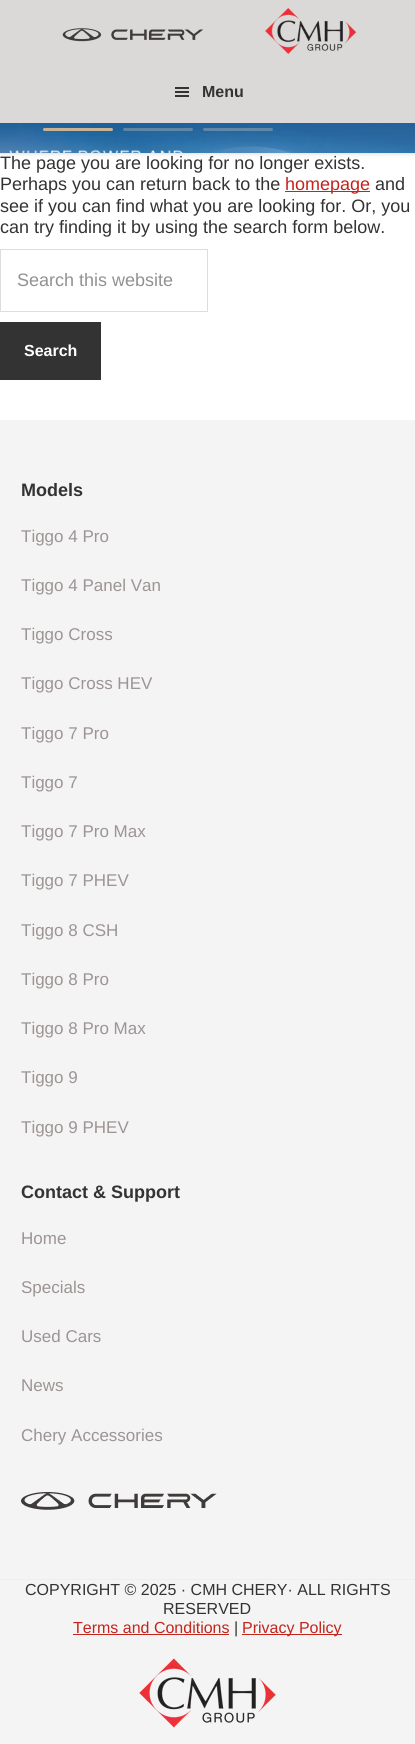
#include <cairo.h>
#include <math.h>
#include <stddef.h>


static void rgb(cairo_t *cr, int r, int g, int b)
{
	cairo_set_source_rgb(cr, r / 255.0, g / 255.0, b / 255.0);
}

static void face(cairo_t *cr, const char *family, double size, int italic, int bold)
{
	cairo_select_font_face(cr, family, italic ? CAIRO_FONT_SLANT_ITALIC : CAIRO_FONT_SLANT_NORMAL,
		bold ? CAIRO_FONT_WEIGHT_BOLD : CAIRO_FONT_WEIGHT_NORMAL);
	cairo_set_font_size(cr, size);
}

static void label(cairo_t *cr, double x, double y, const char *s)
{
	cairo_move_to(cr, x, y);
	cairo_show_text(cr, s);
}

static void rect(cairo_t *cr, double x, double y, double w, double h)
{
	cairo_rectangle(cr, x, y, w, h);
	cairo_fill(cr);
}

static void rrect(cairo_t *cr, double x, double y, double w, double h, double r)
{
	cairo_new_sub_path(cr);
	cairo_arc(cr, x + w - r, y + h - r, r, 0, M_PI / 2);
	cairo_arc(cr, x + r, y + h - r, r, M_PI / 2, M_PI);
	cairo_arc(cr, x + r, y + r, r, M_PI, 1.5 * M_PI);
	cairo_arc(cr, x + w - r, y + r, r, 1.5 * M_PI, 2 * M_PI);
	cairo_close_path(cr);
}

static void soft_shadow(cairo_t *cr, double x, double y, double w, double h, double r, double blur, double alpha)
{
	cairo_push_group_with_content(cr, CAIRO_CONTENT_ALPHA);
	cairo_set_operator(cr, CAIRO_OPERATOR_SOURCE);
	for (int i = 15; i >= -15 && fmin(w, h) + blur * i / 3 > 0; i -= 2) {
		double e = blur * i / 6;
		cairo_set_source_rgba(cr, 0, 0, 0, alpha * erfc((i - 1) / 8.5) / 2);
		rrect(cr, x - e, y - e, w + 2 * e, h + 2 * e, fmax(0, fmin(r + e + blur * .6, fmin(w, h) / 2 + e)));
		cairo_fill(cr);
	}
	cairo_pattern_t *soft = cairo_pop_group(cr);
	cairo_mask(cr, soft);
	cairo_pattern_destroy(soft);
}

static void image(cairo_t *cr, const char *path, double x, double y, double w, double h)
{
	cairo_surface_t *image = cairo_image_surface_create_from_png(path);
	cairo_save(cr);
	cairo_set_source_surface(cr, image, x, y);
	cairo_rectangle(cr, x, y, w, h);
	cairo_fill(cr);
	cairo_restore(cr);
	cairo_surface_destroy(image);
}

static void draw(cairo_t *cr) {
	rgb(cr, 255, 255, 255);
	cairo_paint(cr);
	rgb(cr, 204, 204, 204);
	soft_shadow(cr, 0, 123, 415, 30, 0, 2.5, 1);
	rgb(cr, 218, 217, 215);
	rect(cr, 0, 0, 415, 123);
	image(cr, "image0.png", 62, 28, 142, 14);
	image(cr, "image1.png", 265, 7, 92, 48);
	image(cr, "image2.png", 175, 87, 14, 10);
	face(cr, "Liberation Sans", 16, 0, 1);
	rgb(cr, 51, 51, 51);
	label(cr, 202, 97, "Menu");
	image(cr, "image3.png", 0, 123, 415, 30);
	rgb(cr, 201, 179, 151);
	rrect(cr, 43, 128, 70, 3, 1.5);
	cairo_fill(cr);
	cairo_set_source_rgba(cr, 0.718, 0.714, 0.714, 0.42);
	rrect(cr, 123, 128, 70, 3, 1.5);
	cairo_fill(cr);
	rrect(cr, 203, 128, 70, 3, 1.5);
	cairo_fill(cr);
	face(cr, "Liberation Sans", 18, 0, 0);
	rgb(cr, 51, 51, 51);
	label(cr, 0, 169, "The page you are looking for no longer exists.");
	label(cr, 0, 190, "Perhaps you can return back to the");
	rgb(cr, 195, 37, 29);
	rect(cr, 285, 191, 85, 1);
	label(cr, 285, 190, "homepage");
	rgb(cr, 51, 51, 51);
	label(cr, 375, 190, "and");
	label(cr, 0, 212, "see if you can find what you are looking for. Or, you");
	label(cr, 0, 233, "can try finding it by using the search form below.");
	cairo_rectangle(cr, 0.5, 249.5, 207, 62);
	rgb(cr, 221, 221, 221);
	cairo_set_line_width(cr, 1);
	cairo_stroke(cr);
	rgb(cr, 145, 145, 145);
	label(cr, 17, 286, "Search this website");
	rgb(cr, 51, 51, 51);
	rect(cr, 0, 322, 101, 58);
	face(cr, "Liberation Sans", 16, 0, 1);
	rgb(cr, 255, 255, 255);
	label(cr, 24, 356, "Search");
	rgb(cr, 244, 244, 244);
	rect(cr, 0, 420, 415, 1159);
	face(cr, "Liberation Sans", 18, 0, 1);
	rgb(cr, 51, 51, 51);
	label(cr, 21, 496, "Models");
	face(cr, "Liberation Sans", 17, 0, 0);
	rgb(cr, 157, 148, 148);
	label(cr, 21, 542, "Tiggo 4 Pro");
	label(cr, 21, 591, "Tiggo 4 Panel Van");
	label(cr, 21, 640, "Tiggo Cross");
	label(cr, 21, 689, "Tiggo Cross HEV");
	label(cr, 21, 739, "Tiggo 7 Pro");
	label(cr, 21, 788, "Tiggo 7");
	label(cr, 21, 837, "Tiggo 7 Pro Max");
	label(cr, 21, 886, "Tiggo 7 PHEV");
	label(cr, 21, 936, "Tiggo 8 CSH");
	label(cr, 21, 985, "Tiggo 8 Pro");
	label(cr, 21, 1034, "Tiggo 8 Pro Max");
	label(cr, 21, 1083, "Tiggo 9");
	label(cr, 21, 1133, "Tiggo 9 PHEV");
	face(cr, "Liberation Sans", 18, 0, 1);
	rgb(cr, 51, 51, 51);
	label(cr, 21, 1198, "Contact & Support");
	face(cr, "Liberation Sans", 17, 0, 0);
	rgb(cr, 157, 148, 148);
	label(cr, 21, 1244, "Home");
	label(cr, 21, 1293, "Specials");
	label(cr, 21, 1342, "Used Cars");
	label(cr, 21, 1391, "News");
	label(cr, 21, 1441, "Chery Accessories");
	image(cr, "image4.png", 21, 1492, 196, 18);
	rgb(cr, 244, 244, 244);
	rect(cr, 0, 1580, 415, 164);
	rgb(cr, 238, 238, 238);
	rect(cr, 0, 1579, 415, 1);
	face(cr, "Liberation Sans", 16, 0, 0);
	rgb(cr, 51, 51, 51);
	label(cr, 25, 1595, "COPYRIGHT © 2025 · CMH CHERY· ALL RIGHTS");
	label(cr, 163, 1614, "RESERVED");
	rgb(cr, 195, 37, 29);
	label(cr, 73, 1633, "Terms and Conditions");
	rect(cr, 73, 1634, 156, 1);
	rgb(cr, 51, 51, 51);
	label(cr, 234, 1633, "|");
	rgb(cr, 195, 37, 29);
	rect(cr, 242, 1634, 100, 1);
	label(cr, 242, 1633, "Privacy Policy");
	image(cr, "image5.png", 139, 1658, 137, 70);
}

int main(void) {
	cairo_surface_t *surface = cairo_image_surface_create(CAIRO_FORMAT_RGB24, 415, 1744);
	cairo_t *cr = cairo_create(surface);
	cairo_font_options_t *options = cairo_font_options_create();
	cairo_font_options_set_hint_metrics(options, CAIRO_HINT_METRICS_OFF);
	cairo_font_options_set_hint_style(options, CAIRO_HINT_STYLE_NONE);
	cairo_set_font_options(cr, options);
	cairo_set_miter_limit(cr, 4);
	draw(cr);
	cairo_surface_write_to_png(surface, "render.png");
	cairo_font_options_destroy(options);
	cairo_destroy(cr);
	cairo_surface_destroy(surface);
	return 0;
}
